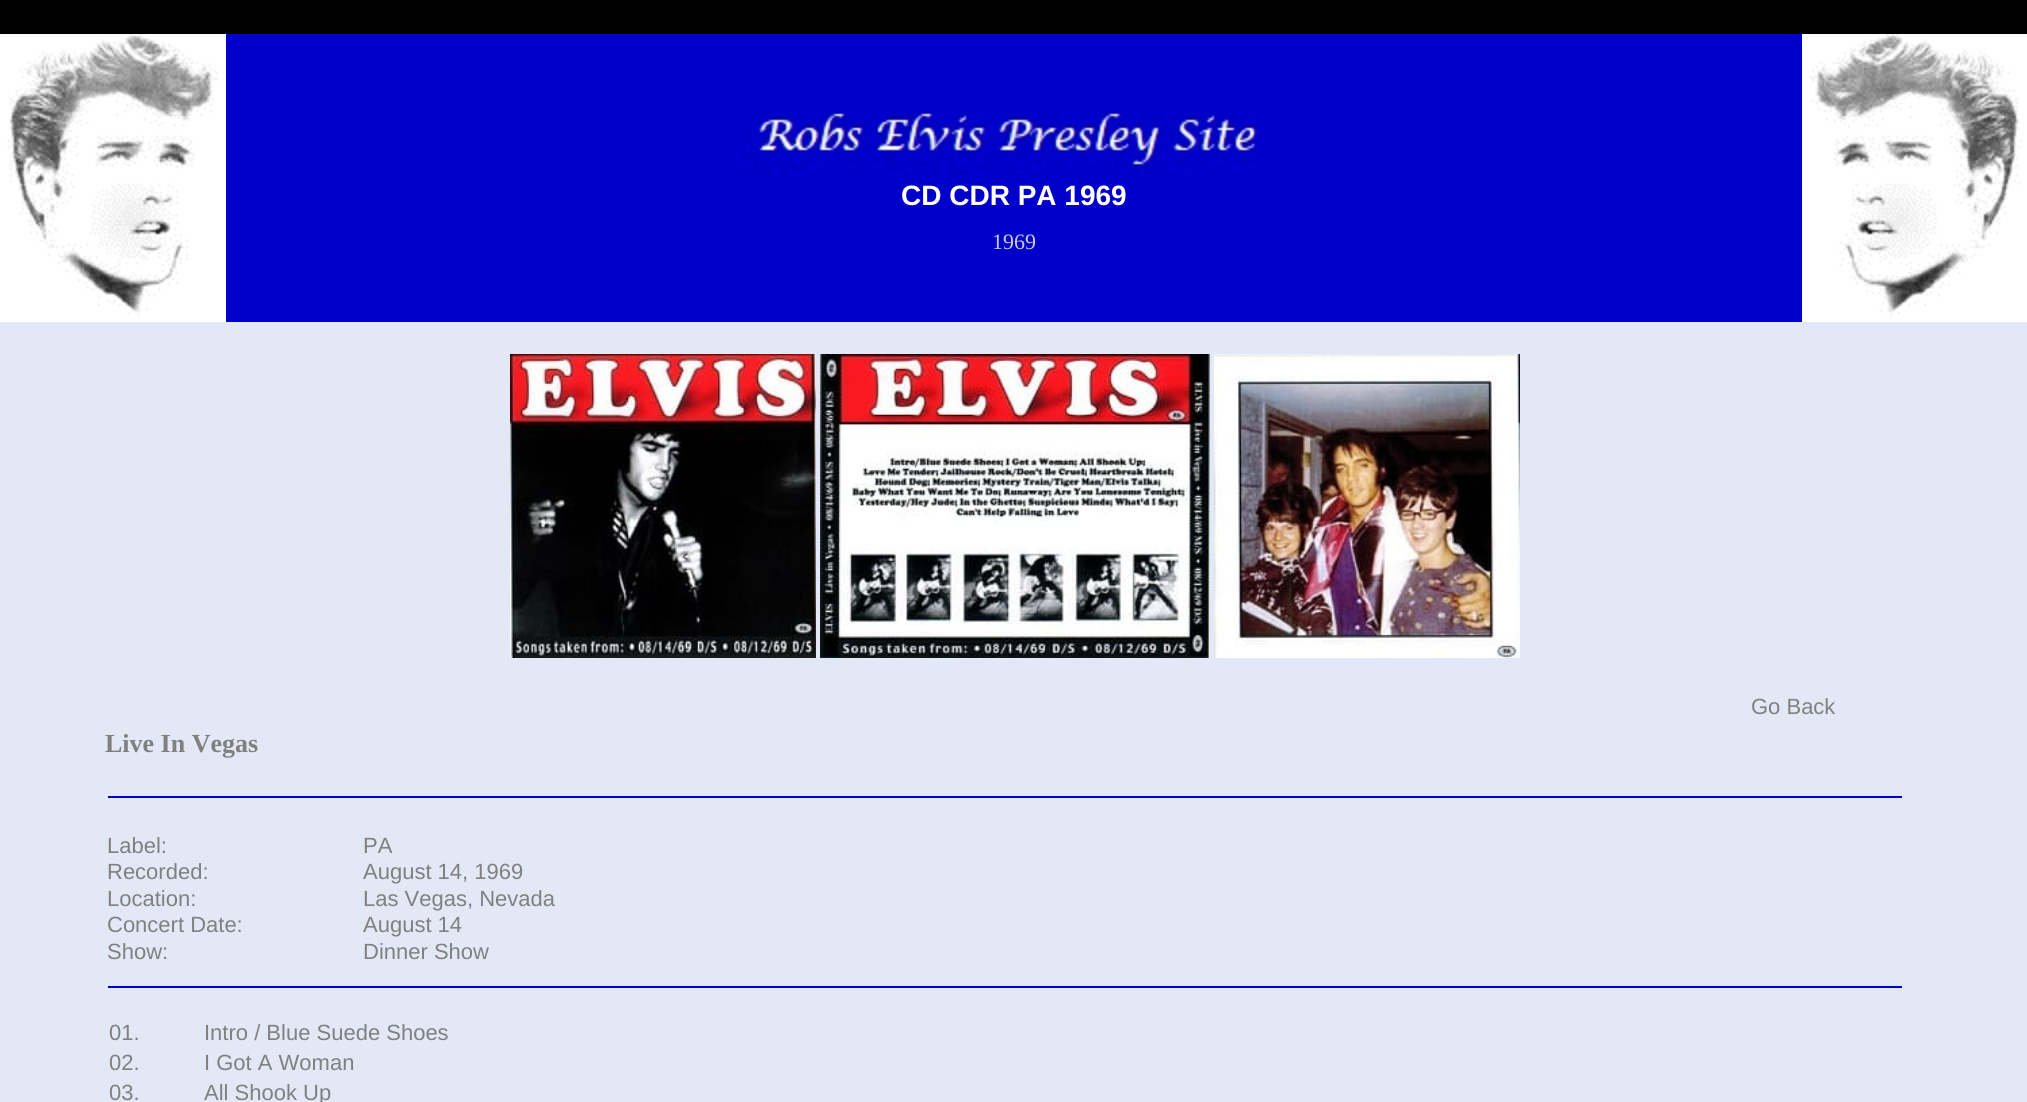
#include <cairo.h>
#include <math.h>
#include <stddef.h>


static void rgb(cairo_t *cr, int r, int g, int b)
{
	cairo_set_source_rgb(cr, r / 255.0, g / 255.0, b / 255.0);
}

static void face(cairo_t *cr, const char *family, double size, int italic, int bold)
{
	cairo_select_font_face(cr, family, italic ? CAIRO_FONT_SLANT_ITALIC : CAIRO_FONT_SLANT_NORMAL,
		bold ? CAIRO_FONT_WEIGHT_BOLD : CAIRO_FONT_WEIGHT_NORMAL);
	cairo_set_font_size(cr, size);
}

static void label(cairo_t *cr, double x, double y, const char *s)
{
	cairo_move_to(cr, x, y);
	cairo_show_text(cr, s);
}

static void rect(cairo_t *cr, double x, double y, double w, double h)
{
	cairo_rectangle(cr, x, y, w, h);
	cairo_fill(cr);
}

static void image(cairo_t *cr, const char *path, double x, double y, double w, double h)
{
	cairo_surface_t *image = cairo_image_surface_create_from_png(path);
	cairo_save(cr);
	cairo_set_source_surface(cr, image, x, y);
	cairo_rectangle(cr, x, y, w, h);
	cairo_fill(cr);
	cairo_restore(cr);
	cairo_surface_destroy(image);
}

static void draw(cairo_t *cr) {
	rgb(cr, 226, 232, 245);
	cairo_paint(cr);
	rgb(cr, 0, 0, 0);
	rect(cr, 0, 0, 2027, 34);
	rgb(cr, 0, 0, 202);
	rect(cr, 226, 34, 1576, 288);
	image(cr, "image0.png", 0, 34, 226, 288);
	image(cr, "image1.png", 1802, 34, 225, 288);
	image(cr, "image2.png", 746, 111, 513, 67);
	face(cr, "Liberation Sans", 28, 0, 1);
	rgb(cr, 255, 255, 255);
	label(cr, 901, 205, "CD CDR PA 1969");
	face(cr, "Liberation Serif", 22, 0, 0);
	rgb(cr, 204, 204, 204);
	label(cr, 992, 249, "1969");
	image(cr, "image3.png", 510, 354, 306, 304);
	image(cr, "image4.png", 820, 354, 390, 304);
	image(cr, "image5.png", 1214, 354, 306, 304);
	face(cr, "Liberation Sans", 22, 0, 0);
	rgb(cr, 128, 128, 128);
	label(cr, 1751, 714, "Go Back");
	face(cr, "Liberation Serif", 26, 0, 1);
	label(cr, 105, 752, "Live In Vegas");
	rgb(cr, 0, 0, 204);
	rect(cr, 108, 796, 1794, 2);
	face(cr, "Liberation Sans", 22, 0, 0);
	rgb(cr, 128, 128, 128);
	label(cr, 107, 853, "Label:");
	label(cr, 107, 879, "Recorded:");
	label(cr, 107, 906, "Location:");
	label(cr, 107, 932, "Concert Date:");
	label(cr, 107, 959, "Show:");
	label(cr, 363, 853, "PA");
	label(cr, 363, 879, "August 14, 1969");
	label(cr, 363, 906, "Las Vegas, Nevada");
	label(cr, 363, 932, "August 14");
	label(cr, 363, 959, "Dinner Show");
	rgb(cr, 0, 0, 204);
	rect(cr, 108, 986, 1794, 2);
	rgb(cr, 128, 128, 128);
	label(cr, 109, 1040, "01.");
	label(cr, 204, 1040, "Intro / Blue Suede Shoes");
	label(cr, 109, 1070, "02.");
	label(cr, 204, 1070, "I Got A Woman");
	label(cr, 109, 1100, "03.");
	label(cr, 204, 1100, "All Shook Up");
}

int main(void) {
	cairo_surface_t *surface = cairo_image_surface_create(CAIRO_FORMAT_RGB24, 2027, 1102);
	cairo_t *cr = cairo_create(surface);
	cairo_font_options_t *options = cairo_font_options_create();
	cairo_font_options_set_hint_metrics(options, CAIRO_HINT_METRICS_OFF);
	cairo_font_options_set_hint_style(options, CAIRO_HINT_STYLE_NONE);
	cairo_set_font_options(cr, options);
	cairo_set_miter_limit(cr, 4);
	draw(cr);
	cairo_surface_write_to_png(surface, "render.png");
	cairo_font_options_destroy(options);
	cairo_destroy(cr);
	cairo_surface_destroy(surface);
	return 0;
}
